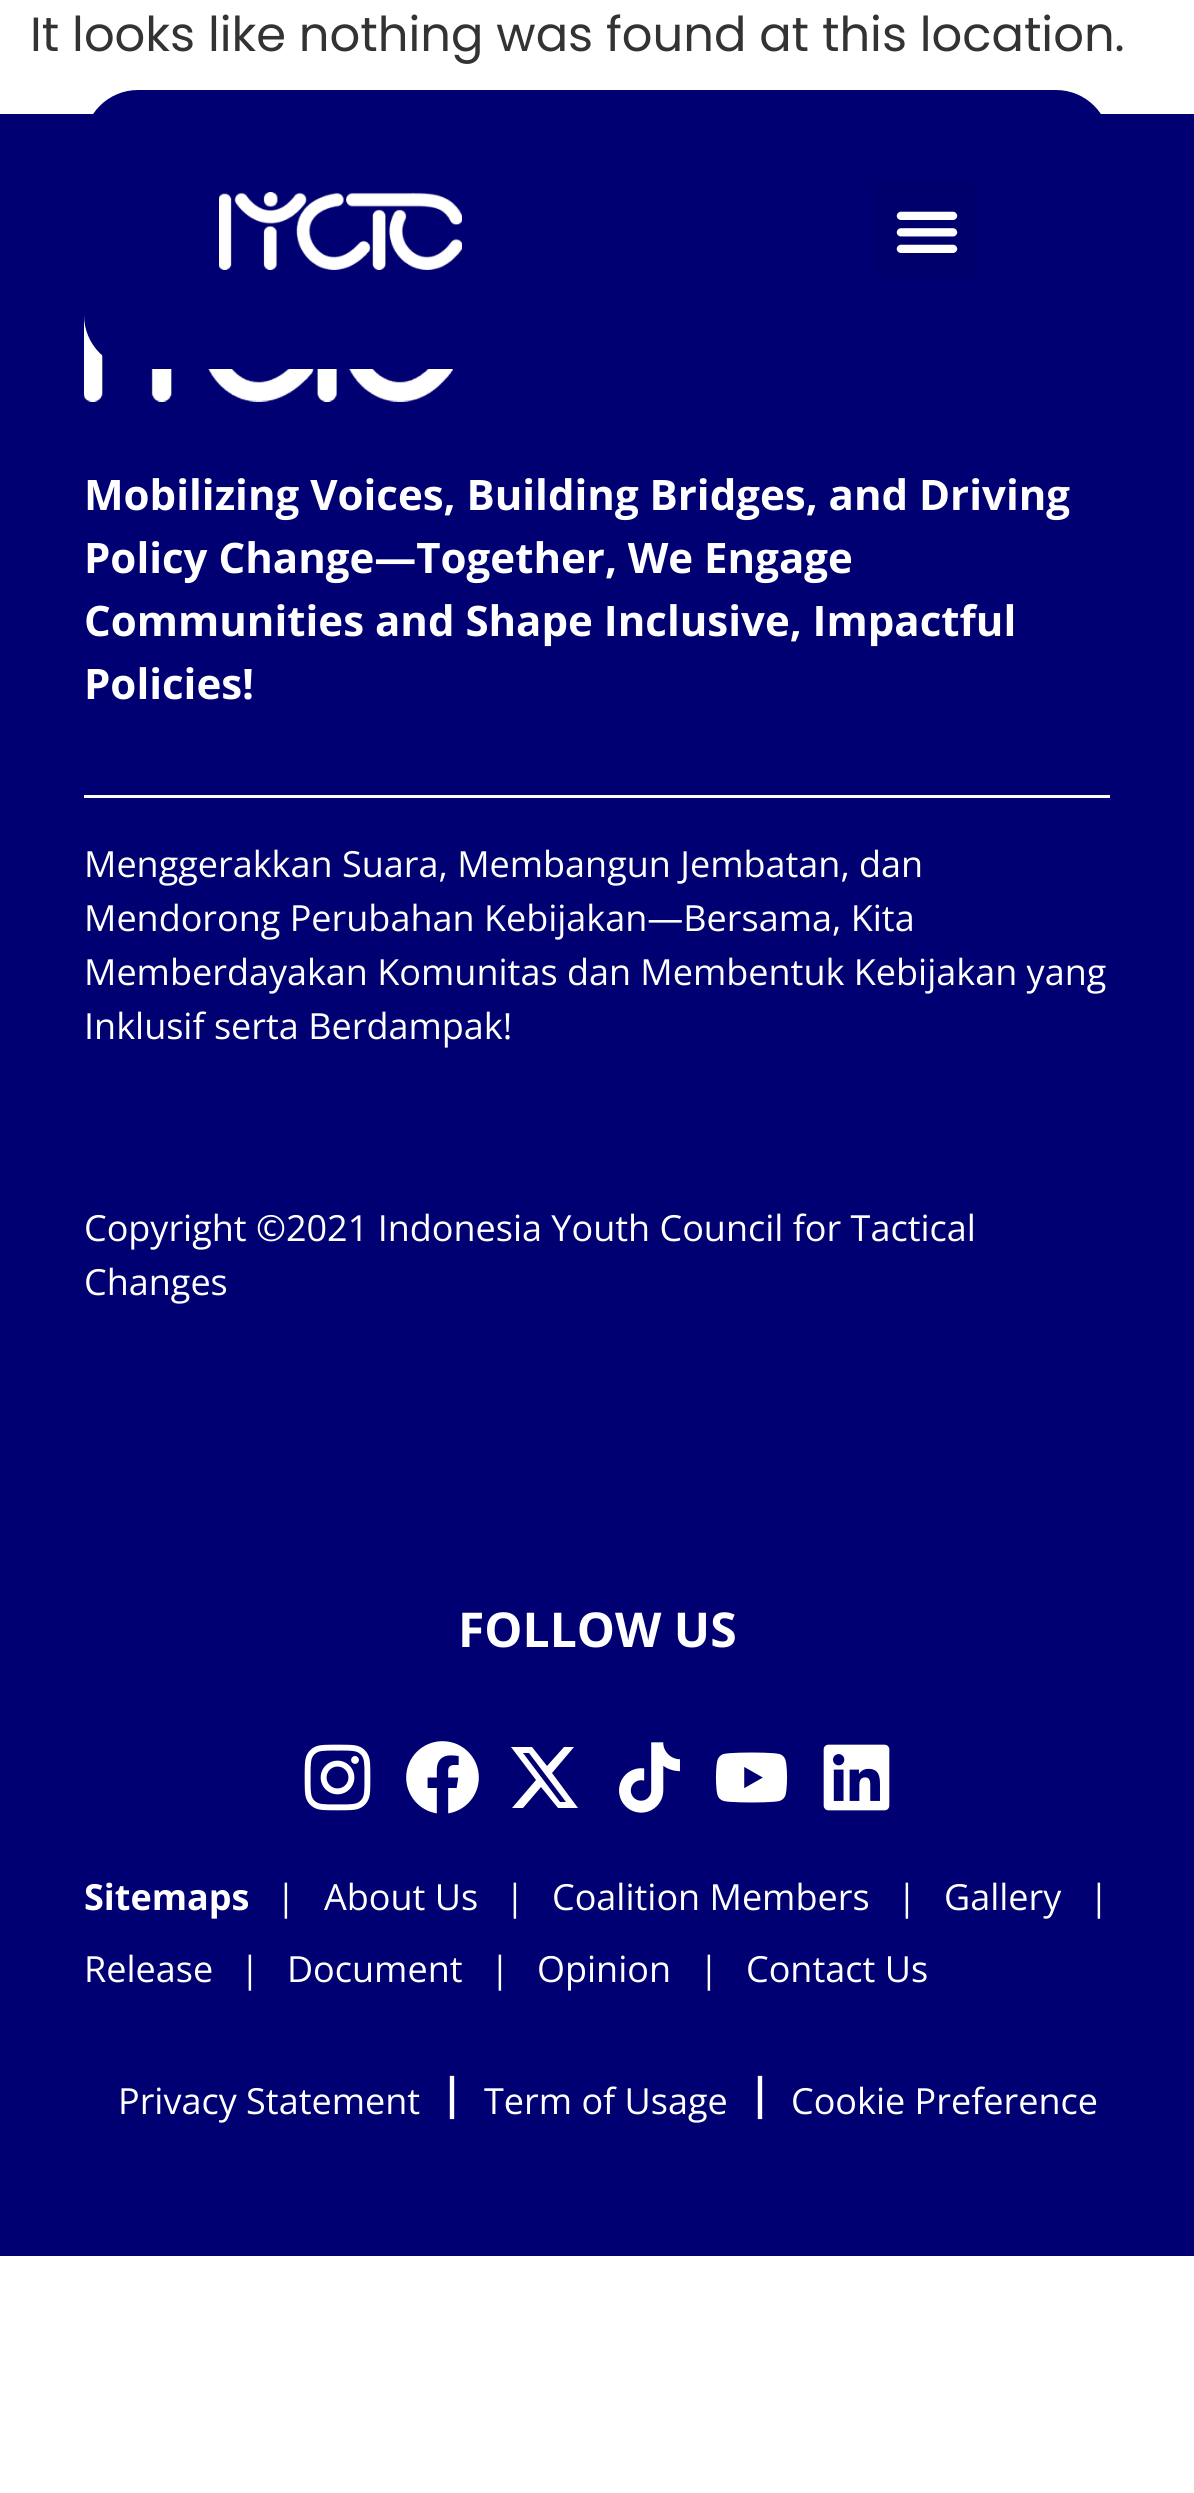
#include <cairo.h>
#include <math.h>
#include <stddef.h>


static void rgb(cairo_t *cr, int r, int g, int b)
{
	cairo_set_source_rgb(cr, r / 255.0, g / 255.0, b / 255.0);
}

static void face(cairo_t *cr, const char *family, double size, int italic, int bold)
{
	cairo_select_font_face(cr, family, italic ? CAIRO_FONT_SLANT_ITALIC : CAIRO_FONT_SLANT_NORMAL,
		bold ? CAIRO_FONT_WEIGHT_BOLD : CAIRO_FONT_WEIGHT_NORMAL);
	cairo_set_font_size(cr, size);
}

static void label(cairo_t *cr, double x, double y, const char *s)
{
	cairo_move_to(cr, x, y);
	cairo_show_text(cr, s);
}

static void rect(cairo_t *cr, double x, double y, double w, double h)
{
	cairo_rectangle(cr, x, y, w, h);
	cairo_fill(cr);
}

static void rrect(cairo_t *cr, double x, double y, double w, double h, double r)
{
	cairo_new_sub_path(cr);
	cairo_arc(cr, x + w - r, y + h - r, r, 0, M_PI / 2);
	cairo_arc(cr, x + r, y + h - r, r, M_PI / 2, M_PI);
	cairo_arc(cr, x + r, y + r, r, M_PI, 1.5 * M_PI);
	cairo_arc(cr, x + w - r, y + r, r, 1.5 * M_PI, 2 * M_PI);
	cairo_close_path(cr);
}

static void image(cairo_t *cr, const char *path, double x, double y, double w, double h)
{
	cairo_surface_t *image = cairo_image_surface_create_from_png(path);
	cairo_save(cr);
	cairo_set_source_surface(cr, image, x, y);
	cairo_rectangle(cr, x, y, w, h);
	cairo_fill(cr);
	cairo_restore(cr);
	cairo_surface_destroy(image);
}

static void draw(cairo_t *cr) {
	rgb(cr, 255, 255, 255);
	cairo_paint(cr);
	face(cr, "Poppins", 48, 0, 0);
	rgb(cr, 51, 51, 51);
	label(cr, 30, 51, "It looks like nothing was found at this location.");
	rgb(cr, 0, 0, 114);
	rect(cr, 0, 114, 1194, 2142);
	image(cr, "image2.png", 84, 315, 369, 87);
	rrect(cr, 84, 90, 1026, 279, 54);
	cairo_fill(cr);
	image(cr, "image0.png", 219, 192, 243, 78);
	rgb(cr, 0, 0, 108);
	rrect(cr, 876, 180, 99, 99, 9);
	cairo_fill(cr);
	image(cr, "image1.png", 896, 211, 62, 42);
	face(cr, "Open Sans", 42, 0, 1);
	rgb(cr, 255, 255, 255);
	label(cr, 84, 510, "Mobilizing Voices, Building Bridges, and Driving");
	label(cr, 84, 573, "Policy Change—Together, We Engage");
	label(cr, 84, 636, "Communities and Shape Inclusive, Impactful");
	label(cr, 84, 699, "Policies!");
	rect(cr, 84, 795, 1026, 3);
	face(cr, "Open Sans", 36, 0, 0);
	label(cr, 84, 877, "Menggerakkan Suara, Membangun Jembatan, dan");
	label(cr, 84, 931, "Mendorong Perubahan Kebijakan—Bersama, Kita");
	label(cr, 84, 985, "Memberdayakan Komunitas dan Membentuk Kebijakan yang");
	label(cr, 84, 1039, "Inklusif serta Berdampak!");
	label(cr, 84, 1241, "Copyright ©2021 Indonesia Youth Council for Tactical");
	label(cr, 84, 1295, "Changes");
	face(cr, "Open Sans", 48, 0, 1);
	label(cr, 458, 1647, "FOLLOW US");
	image(cr, "image3.png", 304, 1744, 67, 67);
	image(cr, "image4.png", 406, 1741, 73, 73);
	cairo_new_path(cr);
	cairo_move_to(cr, 564, 1747);
	cairo_line_to(cr, 574, 1747);
	cairo_line_to(cr, 552, 1773);
	cairo_line_to(cr, 578, 1808);
	cairo_line_to(cr, 558, 1808);
	cairo_line_to(cr, 541, 1787);
	cairo_line_to(cr, 523, 1808);
	cairo_line_to(cr, 512, 1808);
	cairo_line_to(cr, 536, 1780);
	cairo_line_to(cr, 511, 1747);
	cairo_line_to(cr, 532, 1747);
	cairo_line_to(cr, 547, 1766);
	cairo_close_path(cr);
	cairo_move_to(cr, 560, 1802);
	cairo_line_to(cr, 566, 1802);
	cairo_line_to(cr, 529, 1753);
	cairo_line_to(cr, 523, 1753);
	cairo_close_path(cr);
	cairo_fill(cr);
	image(cr, "image5.png", 619, 1742, 61, 71);
	image(cr, "image6.png", 715, 1752, 73, 51);
	image(cr, "image7.png", 823, 1744, 67, 67);
	face(cr, "Open Sans", 36, 0, 1);
	label(cr, 84, 1910, "Sitemaps");
	face(cr, "Open Sans", 36, 0, 0);
	label(cr, 276, 1910, "|");
	label(cr, 324, 1910, "About Us");
	label(cr, 505, 1910, "|");
	label(cr, 552, 1910, "Coalition Members");
	label(cr, 897, 1910, "|");
	label(cr, 944, 1910, "Gallery");
	label(cr, 1089, 1910, "|");
	label(cr, 84, 1982, "Release");
	label(cr, 240, 1982, "|");
	label(cr, 287, 1982, "Document");
	label(cr, 490, 1982, "|");
	label(cr, 537, 1982, "Opinion");
	label(cr, 699, 1982, "|");
	label(cr, 746, 1982, "Contact Us");
	label(cr, 118, 2114, "Privacy Statement");
	face(cr, "Poppins", 48, 0, 0);
	label(cr, 445, 2114, "|");
	face(cr, "Open Sans", 36, 0, 0);
	label(cr, 484, 2114, "Term of Usage");
	face(cr, "Poppins", 48, 0, 0);
	label(cr, 753, 2114, "|");
	face(cr, "Open Sans", 36, 0, 0);
	label(cr, 791, 2114, "Cookie Preference");
}

int main(void) {
	cairo_surface_t *surface = cairo_image_surface_create(CAIRO_FORMAT_RGB24, 1194, 2493);
	cairo_t *cr = cairo_create(surface);
	cairo_font_options_t *options = cairo_font_options_create();
	cairo_font_options_set_hint_metrics(options, CAIRO_HINT_METRICS_OFF);
	cairo_font_options_set_hint_style(options, CAIRO_HINT_STYLE_NONE);
	cairo_set_font_options(cr, options);
	cairo_set_miter_limit(cr, 4);
	draw(cr);
	cairo_surface_write_to_png(surface, "render.png");
	cairo_font_options_destroy(options);
	cairo_destroy(cr);
	cairo_surface_destroy(surface);
	return 0;
}
